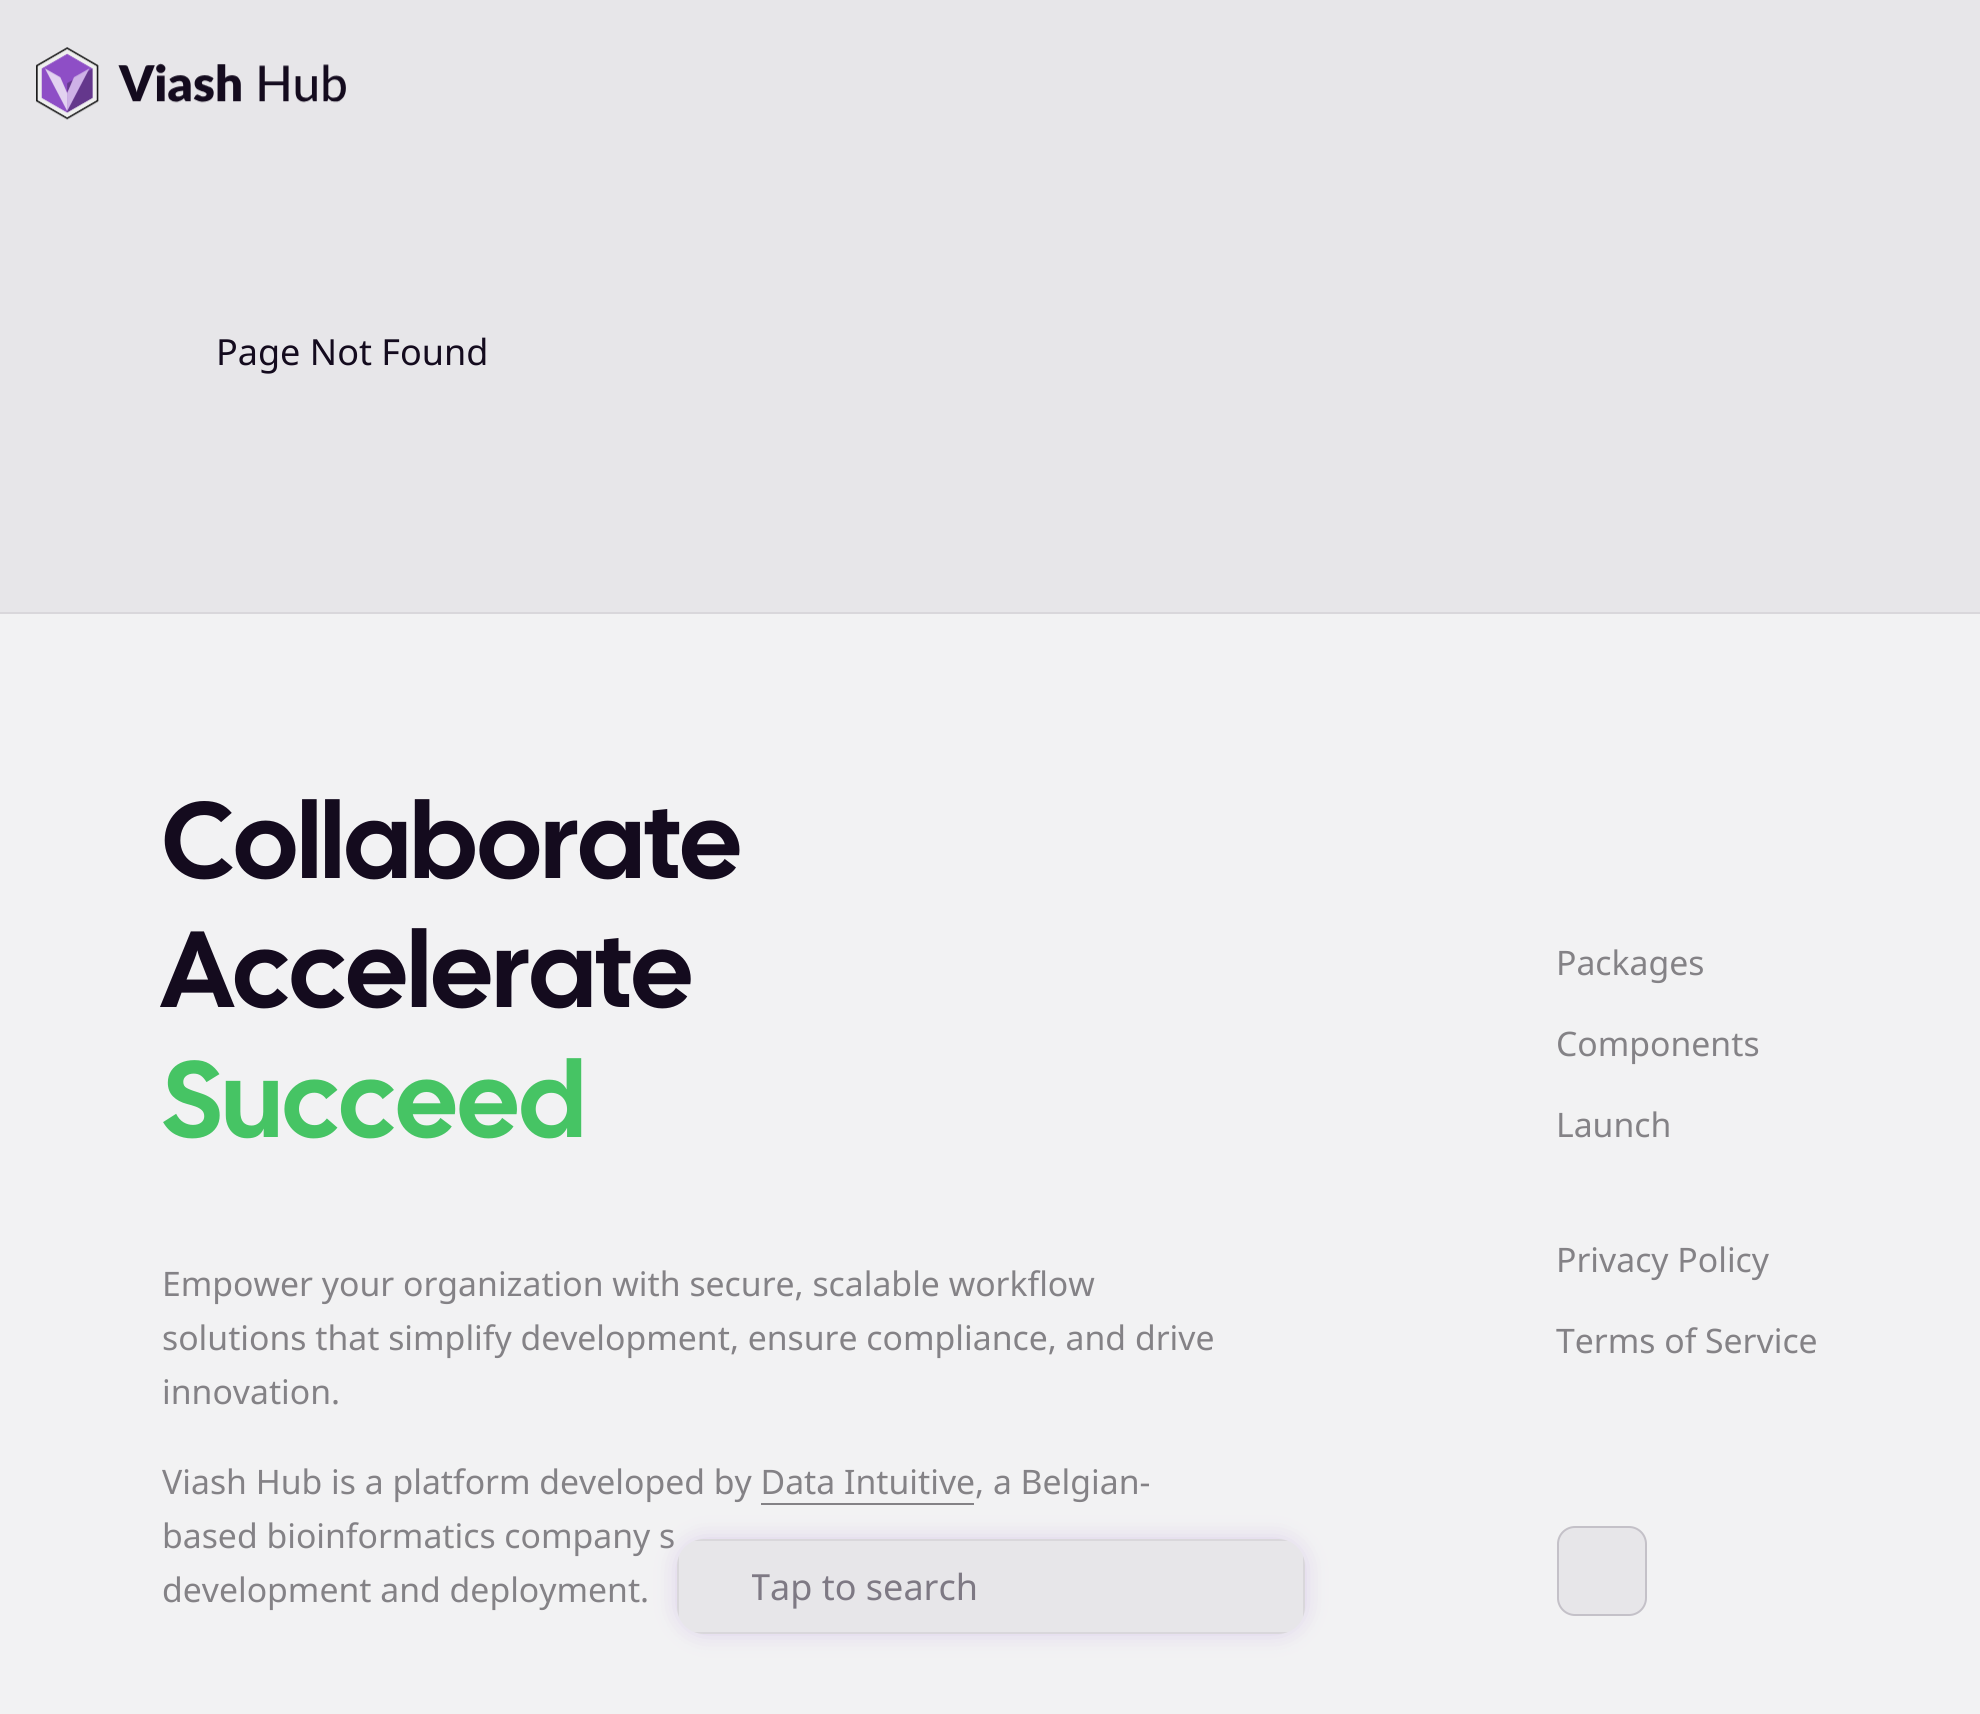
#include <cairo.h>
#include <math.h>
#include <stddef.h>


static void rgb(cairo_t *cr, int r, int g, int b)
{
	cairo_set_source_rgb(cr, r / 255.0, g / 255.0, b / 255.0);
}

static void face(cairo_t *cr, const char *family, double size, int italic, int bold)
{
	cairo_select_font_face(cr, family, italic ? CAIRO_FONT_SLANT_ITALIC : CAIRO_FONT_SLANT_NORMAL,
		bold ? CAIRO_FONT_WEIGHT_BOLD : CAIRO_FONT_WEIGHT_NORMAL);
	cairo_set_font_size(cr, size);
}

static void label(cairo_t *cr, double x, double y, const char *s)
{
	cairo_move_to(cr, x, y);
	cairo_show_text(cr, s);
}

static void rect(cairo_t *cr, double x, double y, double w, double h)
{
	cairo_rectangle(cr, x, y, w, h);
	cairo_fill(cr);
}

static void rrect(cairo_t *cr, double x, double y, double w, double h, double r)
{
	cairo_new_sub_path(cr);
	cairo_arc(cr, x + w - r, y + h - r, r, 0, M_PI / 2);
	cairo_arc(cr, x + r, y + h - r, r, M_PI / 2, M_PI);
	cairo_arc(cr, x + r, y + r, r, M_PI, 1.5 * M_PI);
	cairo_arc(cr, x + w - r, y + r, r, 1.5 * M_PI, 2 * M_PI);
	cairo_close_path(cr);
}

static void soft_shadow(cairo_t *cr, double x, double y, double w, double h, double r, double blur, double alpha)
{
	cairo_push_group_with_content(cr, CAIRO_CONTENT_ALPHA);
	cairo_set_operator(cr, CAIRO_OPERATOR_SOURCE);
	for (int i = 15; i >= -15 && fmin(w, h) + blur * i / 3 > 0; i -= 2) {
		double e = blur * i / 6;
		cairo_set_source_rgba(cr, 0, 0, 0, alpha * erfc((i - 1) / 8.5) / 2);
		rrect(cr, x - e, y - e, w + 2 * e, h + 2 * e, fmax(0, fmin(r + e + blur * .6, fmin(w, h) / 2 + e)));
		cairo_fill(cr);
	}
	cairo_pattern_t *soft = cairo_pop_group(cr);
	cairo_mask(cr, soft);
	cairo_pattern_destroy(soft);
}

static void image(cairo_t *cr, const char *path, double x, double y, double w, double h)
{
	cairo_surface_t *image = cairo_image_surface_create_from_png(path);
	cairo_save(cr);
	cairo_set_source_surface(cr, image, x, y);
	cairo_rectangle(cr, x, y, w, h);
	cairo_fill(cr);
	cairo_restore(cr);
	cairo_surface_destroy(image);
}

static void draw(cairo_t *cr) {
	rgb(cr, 231, 230, 233);
	cairo_paint(cr);
	image(cr, "image0.png", 36, 47, 310, 73);
	face(cr, "Noto Sans", 36, 0, 0);
	rgb(cr, 20, 11, 30);
	label(cr, 216, 365, "Page Not Found");
	rgb(cr, 242, 242, 243);
	rect(cr, 0, 614, 1980, 1100);
	rgb(cr, 217, 215, 219);
	rect(cr, 0, 612, 1980, 2);
	face(cr, "Cal Sans", 108, 0, 0);
	rgb(cr, 20, 11, 30);
	label(cr, 162, 878, "Collaborate");
	label(cr, 162, 1007, "Accelerate");
	rgb(cr, 70, 196, 100);
	label(cr, 162, 1137, "Succeed");
	face(cr, "Noto Sans", 33.75, 0, 0);
	rgb(cr, 132, 130, 134);
	label(cr, 162, 1296, "Empower your organization with secure, scalable workflow");
	label(cr, 162, 1350, "solutions that simplify development, ensure compliance, and drive");
	label(cr, 162, 1404, "innovation.");
	label(cr, 162, 1494, "Viash Hub is a platform developed by Data Intuitive, a Belgian-");
	rect(cr, 761, 1503, 213, 2);
	label(cr, 162, 1548, "based bioinformatics company s");
	label(cr, 162, 1602, "development and deployment.");
	label(cr, 1556, 975, "Packages");
	label(cr, 1556, 1056, "Components");
	label(cr, 1556, 1137, "Launch");
	label(cr, 1556, 1272, "Privacy Policy");
	label(cr, 1556, 1353, "Terms of Service");
	rgb(cr, 231, 230, 233);
	rrect(cr, 1558, 1527, 88, 88, 17);
	cairo_fill_preserve(cr);
	rgb(cr, 196, 193, 200);
	cairo_stroke(cr);
	rgb(cr, 128, 65, 199);
	soft_shadow(cr, 677, 1539, 628, 95, 27, 11, 0.2);
	rgb(cr, 231, 230, 233);
	rrect(cr, 677, 1539, 628, 95, 27);
	cairo_fill(cr);
	rgb(cr, 217, 215, 219);
	cairo_set_fill_rule(cr, CAIRO_FILL_RULE_EVEN_ODD);
	cairo_new_path(cr);
	cairo_move_to(cr, 677, 1566);
	cairo_line_to(cr, 677, 1607);
	cairo_curve_to(cr, 677, 1611, 678, 1614, 679, 1617);
	cairo_line_to(cr, 679, 1556);
	cairo_curve_to(cr, 678, 1559, 677, 1562, 677, 1566);
	cairo_close_path(cr);
	cairo_move_to(cr, 695, 1541);
	cairo_line_to(cr, 1288, 1541);
	cairo_curve_to(cr, 1285, 1540, 1282, 1539, 1278, 1539);
	cairo_line_to(cr, 704, 1539);
	cairo_curve_to(cr, 700, 1539, 697, 1540, 694, 1541);
	cairo_close_path(cr);
	cairo_move_to(cr, 1305, 1566);
	cairo_curve_to(cr, 1305, 1562, 1304, 1559, 1303, 1556);
	cairo_line_to(cr, 1303, 1617);
	cairo_curve_to(cr, 1304, 1614, 1305, 1611, 1305, 1607);
	cairo_close_path(cr);
	cairo_move_to(cr, 1278, 1634);
	cairo_curve_to(cr, 1282, 1634, 1285, 1633, 1288, 1632);
	cairo_line_to(cr, 694, 1632);
	cairo_curve_to(cr, 697, 1633, 700, 1634, 704, 1634);
	cairo_close_path(cr);
	cairo_fill(cr);
	cairo_save(cr);
	cairo_set_fill_rule(cr, CAIRO_FILL_RULE_WINDING);
	cairo_rectangle(cr, 752, 1562, 515, 49);
	cairo_clip(cr);
	face(cr, "Noto Sans", 36, 0, 0);
	rgb(cr, 126, 121, 132);
	label(cr, 750, 1600, "Tap to search");
	cairo_restore(cr);
}

int main(void) {
	cairo_surface_t *surface = cairo_image_surface_create(CAIRO_FORMAT_RGB24, 1980, 1714);
	cairo_t *cr = cairo_create(surface);
	cairo_font_options_t *options = cairo_font_options_create();
	cairo_font_options_set_hint_metrics(options, CAIRO_HINT_METRICS_OFF);
	cairo_font_options_set_hint_style(options, CAIRO_HINT_STYLE_NONE);
	cairo_set_font_options(cr, options);
	cairo_set_miter_limit(cr, 4);
	draw(cr);
	cairo_surface_write_to_png(surface, "render.png");
	cairo_font_options_destroy(options);
	cairo_destroy(cr);
	cairo_surface_destroy(surface);
	return 0;
}
